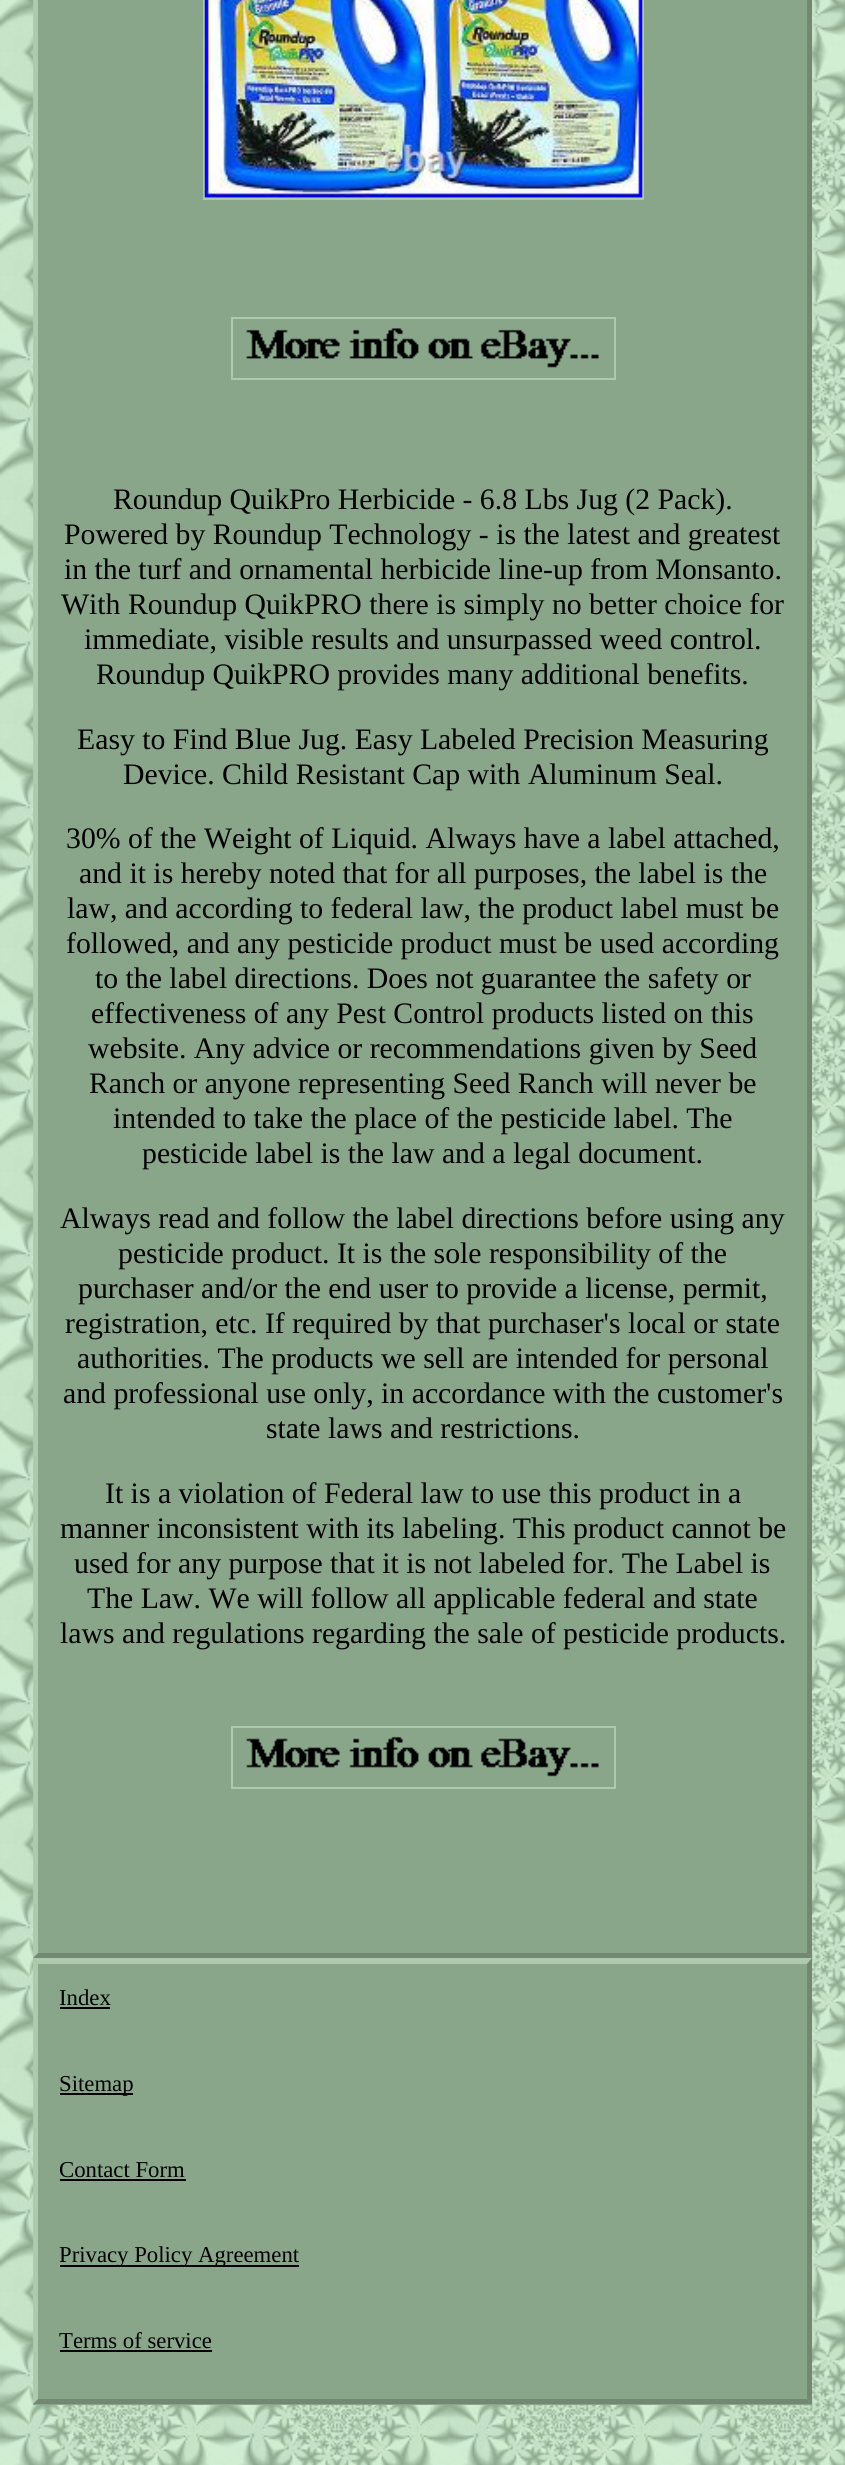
#include <cairo.h>
#include <math.h>
#include <stddef.h>


static void rgb(cairo_t *cr, int r, int g, int b)
{
	cairo_set_source_rgb(cr, r / 255.0, g / 255.0, b / 255.0);
}

static void face(cairo_t *cr, const char *family, double size, int italic, int bold)
{
	cairo_select_font_face(cr, family, italic ? CAIRO_FONT_SLANT_ITALIC : CAIRO_FONT_SLANT_NORMAL,
		bold ? CAIRO_FONT_WEIGHT_BOLD : CAIRO_FONT_WEIGHT_NORMAL);
	cairo_set_font_size(cr, size);
}

static void label(cairo_t *cr, double x, double y, const char *s)
{
	cairo_move_to(cr, x, y);
	cairo_show_text(cr, s);
}

static void rect(cairo_t *cr, double x, double y, double w, double h)
{
	cairo_rectangle(cr, x, y, w, h);
	cairo_fill(cr);
}

static void image(cairo_t *cr, const char *path, double x, double y, double w, double h)
{
	cairo_surface_t *image = cairo_image_surface_create_from_png(path);
	cairo_save(cr);
	cairo_set_source_surface(cr, image, x, y);
	cairo_rectangle(cr, x, y, w, h);
	cairo_fill(cr);
	cairo_restore(cr);
	cairo_surface_destroy(image);
}

static void draw(cairo_t *cr) {
	rgb(cr, 255, 255, 255);
	cairo_paint(cr);
	image(cr, "image0.png", 0, 0, 845, 2465);
	rgb(cr, 137, 166, 138);
	rect(cr, 33, 0, 779, 2405);
	rgb(cr, 115, 135, 116);
	cairo_new_path(cr);
	cairo_move_to(cr, 812, -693);
	cairo_line_to(cr, 812, 1958);
	cairo_line_to(cr, 807, 1953);
	cairo_line_to(cr, 807, -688);
	cairo_close_path(cr);
	cairo_fill(cr);
	cairo_new_path(cr);
	cairo_move_to(cr, 812, 1958);
	cairo_line_to(cr, 33, 1958);
	cairo_line_to(cr, 38, 1953);
	cairo_line_to(cr, 807, 1953);
	cairo_close_path(cr);
	cairo_fill(cr);
	rgb(cr, 173, 202, 174);
	cairo_new_path(cr);
	cairo_move_to(cr, 33, 1958);
	cairo_line_to(cr, 33, -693);
	cairo_line_to(cr, 38, -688);
	cairo_line_to(cr, 38, 1953);
	cairo_close_path(cr);
	cairo_fill(cr);
	cairo_rectangle(cr, 204, -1, 439, 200);
	cairo_stroke(cr);
	image(cr, "image1.png", 204, 0, 439, 198);
	cairo_rectangle(cr, 232, 318, 383, 61);
	cairo_stroke(cr);
	image(cr, "image2.png", 246, 328, 353, 40);
	face(cr, "Liberation Serif", 29.75, 0, 0);
	rgb(cr, 0, 0, 0);
	label(cr, 113, 509, "Roundup QuikPro Herbicide - 6.8 Lbs Jug (2 Pack).");
	label(cr, 64, 544, "Powered by Roundup Technology - is the latest and greatest");
	label(cr, 64, 579, "in the turf and ornamental herbicide line-up from Monsanto.");
	label(cr, 61, 614, "With Roundup QuikPRO there is simply no better choice for");
	label(cr, 84, 649, "immediate, visible results and unsurpassed weed control.");
	label(cr, 96, 684, "Roundup QuikPRO provides many additional benefits.");
	label(cr, 77, 749, "Easy to Find Blue Jug. Easy Labeled Precision Measuring");
	label(cr, 123, 784, "Device. Child Resistant Cap with Aluminum Seal.");
	label(cr, 66, 848, "30% of the Weight of Liquid. Always have a label attached,");
	label(cr, 79, 883, "and it is hereby noted that for all purposes, the label is the");
	label(cr, 67, 918, "law, and according to federal law, the product label must be");
	label(cr, 66, 953, "followed, and any pesticide product must be used according");
	label(cr, 95, 988, "to the label directions. Does not guarantee the safety or");
	label(cr, 91, 1023, "effectiveness of any Pest Control products listed on this");
	label(cr, 88, 1058, "website. Any advice or recommendations given by Seed");
	label(cr, 89, 1093, "Ranch or anyone representing Seed Ranch will never be");
	label(cr, 113, 1128, "intended to take the place of the pesticide label. The");
	label(cr, 142, 1163, "pesticide label is the law and a legal document.");
	label(cr, 60, 1228, "Always read and follow the label directions before using any");
	label(cr, 118, 1263, "pesticide product. It is the sole responsibility of the");
	label(cr, 78, 1298, "purchaser and/or the end user to provide a license, permit,");
	label(cr, 65, 1333, "registration, etc. If required by that purchaser's local or state");
	label(cr, 77, 1368, "authorities. The products we sell are intended for personal");
	label(cr, 63, 1403, "and professional use only, in accordance with the customer's");
	label(cr, 266, 1438, "state laws and restrictions.");
	label(cr, 105, 1503, "It is a violation of Federal law to use this product in a");
	label(cr, 60, 1538, "manner inconsistent with its labeling. This product cannot be");
	label(cr, 74, 1573, "used for any purpose that it is not labeled for. The Label is");
	label(cr, 87, 1608, "The Law. We will follow all applicable federal and state");
	label(cr, 60, 1643, "laws and regulations regarding the sale of pesticide products.");
	cairo_rectangle(cr, 232, 1727, 383, 61);
	rgb(cr, 173, 202, 174);
	cairo_stroke(cr);
	image(cr, "image3.png", 246, 1736, 353, 41);
	cairo_new_path(cr);
	cairo_move_to(cr, 33, 1958);
	cairo_line_to(cr, 812, 1958);
	cairo_line_to(cr, 807, 1964);
	cairo_line_to(cr, 38, 1964);
	cairo_close_path(cr);
	cairo_fill(cr);
	rgb(cr, 115, 135, 116);
	cairo_new_path(cr);
	cairo_move_to(cr, 812, 1958);
	cairo_line_to(cr, 812, 2404);
	cairo_line_to(cr, 807, 2399);
	cairo_line_to(cr, 807, 1964);
	cairo_close_path(cr);
	cairo_fill(cr);
	cairo_new_path(cr);
	cairo_move_to(cr, 812, 2404);
	cairo_line_to(cr, 33, 2404);
	cairo_line_to(cr, 38, 2399);
	cairo_line_to(cr, 807, 2399);
	cairo_close_path(cr);
	cairo_fill(cr);
	rgb(cr, 173, 202, 174);
	cairo_new_path(cr);
	cairo_move_to(cr, 33, 2404);
	cairo_line_to(cr, 33, 1958);
	cairo_line_to(cr, 38, 1964);
	cairo_line_to(cr, 38, 2399);
	cairo_close_path(cr);
	cairo_fill(cr);
	face(cr, "Liberation Serif", 22.75, 0, 0);
	rgb(cr, 0, 0, 0);
	label(cr, 59, 2005, "Index");
	rect(cr, 60, 2007, 50, 2);
	rect(cr, 60, 2093, 73, 2);
	label(cr, 59, 2091, "Sitemap");
	label(cr, 59, 2177, "Contact Form");
	rect(cr, 60, 2179, 126, 2);
	rect(cr, 60, 2265, 239, 2);
	label(cr, 59, 2262, "Privacy Policy Agreement");
	label(cr, 59, 2348, "Terms of service");
	rect(cr, 60, 2350, 152, 2);
}

int main(void) {
	cairo_surface_t *surface = cairo_image_surface_create(CAIRO_FORMAT_RGB24, 845, 2465);
	cairo_t *cr = cairo_create(surface);
	cairo_font_options_t *options = cairo_font_options_create();
	cairo_font_options_set_hint_metrics(options, CAIRO_HINT_METRICS_OFF);
	cairo_font_options_set_hint_style(options, CAIRO_HINT_STYLE_NONE);
	cairo_set_font_options(cr, options);
	cairo_set_miter_limit(cr, 4);
	draw(cr);
	cairo_surface_write_to_png(surface, "render.png");
	cairo_font_options_destroy(options);
	cairo_destroy(cr);
	cairo_surface_destroy(surface);
	return 0;
}
